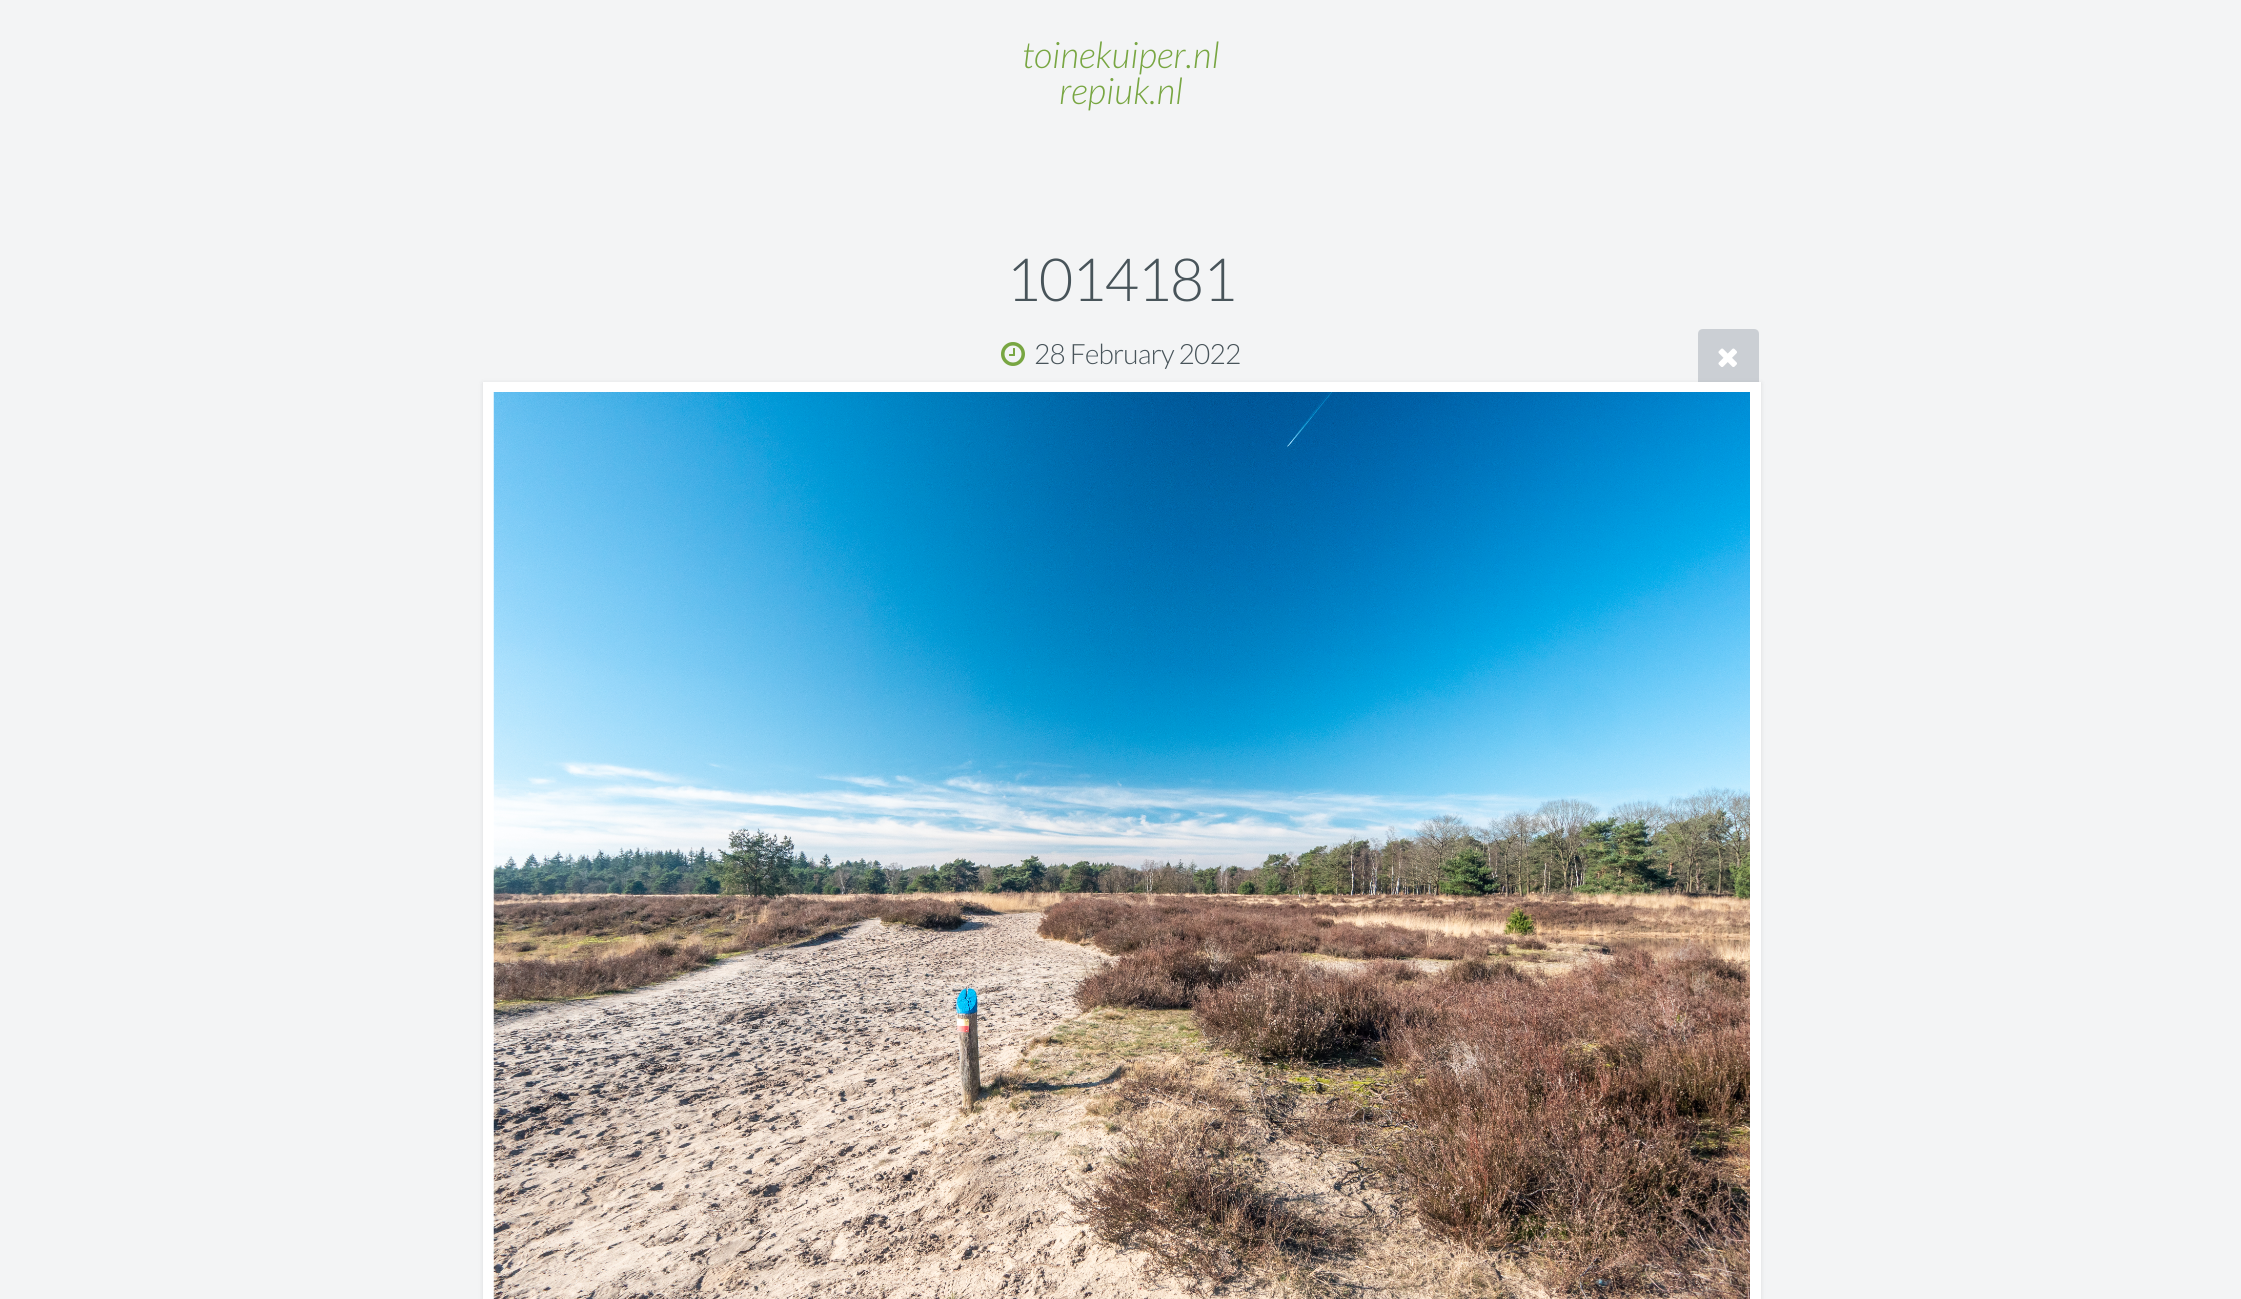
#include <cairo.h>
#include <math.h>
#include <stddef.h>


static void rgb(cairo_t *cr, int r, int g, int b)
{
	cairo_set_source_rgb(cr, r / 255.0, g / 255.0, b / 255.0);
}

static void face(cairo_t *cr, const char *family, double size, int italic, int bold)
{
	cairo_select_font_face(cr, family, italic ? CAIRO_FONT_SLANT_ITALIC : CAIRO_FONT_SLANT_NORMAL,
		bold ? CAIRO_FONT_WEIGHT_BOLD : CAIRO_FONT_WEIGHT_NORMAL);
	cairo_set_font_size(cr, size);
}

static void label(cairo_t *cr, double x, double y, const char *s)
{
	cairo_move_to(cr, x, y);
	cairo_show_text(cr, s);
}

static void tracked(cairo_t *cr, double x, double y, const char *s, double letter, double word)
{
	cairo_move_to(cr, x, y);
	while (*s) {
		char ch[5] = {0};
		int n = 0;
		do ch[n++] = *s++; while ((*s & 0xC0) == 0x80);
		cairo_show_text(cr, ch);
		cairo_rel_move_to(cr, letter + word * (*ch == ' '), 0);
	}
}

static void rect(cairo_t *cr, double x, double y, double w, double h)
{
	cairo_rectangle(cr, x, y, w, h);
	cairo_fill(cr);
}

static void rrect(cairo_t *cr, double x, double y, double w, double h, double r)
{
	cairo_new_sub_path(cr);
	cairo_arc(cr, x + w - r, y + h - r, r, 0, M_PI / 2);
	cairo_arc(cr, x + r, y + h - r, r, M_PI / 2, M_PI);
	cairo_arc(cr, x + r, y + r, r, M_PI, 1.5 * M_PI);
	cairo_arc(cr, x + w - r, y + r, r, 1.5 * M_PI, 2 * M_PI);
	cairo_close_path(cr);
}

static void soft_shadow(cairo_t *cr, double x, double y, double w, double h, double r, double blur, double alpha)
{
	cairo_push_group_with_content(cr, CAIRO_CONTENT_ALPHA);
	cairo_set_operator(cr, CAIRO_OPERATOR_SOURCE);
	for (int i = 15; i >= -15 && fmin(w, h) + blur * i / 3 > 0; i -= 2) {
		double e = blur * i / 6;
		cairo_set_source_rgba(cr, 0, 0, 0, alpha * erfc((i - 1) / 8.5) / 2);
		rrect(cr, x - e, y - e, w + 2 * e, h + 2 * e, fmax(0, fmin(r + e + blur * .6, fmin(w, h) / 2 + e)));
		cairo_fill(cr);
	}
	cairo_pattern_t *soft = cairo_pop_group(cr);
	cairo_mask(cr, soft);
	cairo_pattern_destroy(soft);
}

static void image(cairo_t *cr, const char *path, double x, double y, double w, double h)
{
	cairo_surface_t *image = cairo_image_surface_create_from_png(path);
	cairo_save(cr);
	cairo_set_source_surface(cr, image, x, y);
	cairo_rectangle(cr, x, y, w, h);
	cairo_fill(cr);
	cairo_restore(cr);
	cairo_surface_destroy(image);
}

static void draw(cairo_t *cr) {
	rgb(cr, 243, 244, 245);
	cairo_paint(cr);
	face(cr, "Lato Light", 36.5, 1, 0);
	rgb(cr, 120, 166, 66);
	label(cr, 1022, 68, "toinekuiper.nl");
	label(cr, 1059, 104, "repiuk.nl");
	face(cr, "Lato Light", 59.5, 0, 0);
	rgb(cr, 72, 84, 90);
	tracked(cr, 1006, 301, "1014181", -1.75, 0);
	image(cr, "image0.png", 1001, 342, 24, 24);
	face(cr, "Lato Light", 28, 0, 0);
	tracked(cr, 1034, 364, "28 February 2022", -0.75, 0);
	rgb(cr, 203, 207, 212);
	cairo_new_path(cr);
	cairo_move_to(cr, 1703, 329);
	cairo_line_to(cr, 1754, 329);
	cairo_curve_to(cr, 1757, 329, 1759, 331, 1759, 334);
	cairo_line_to(cr, 1759, 382);
	cairo_line_to(cr, 1698, 382);
	cairo_line_to(cr, 1698, 334);
	cairo_curve_to(cr, 1698, 331, 1700, 329, 1703, 329);
	cairo_close_path(cr);
	cairo_fill(cr);
	image(cr, "image1.png", 1718, 348, 19, 19);
	rgb(cr, 0, 0, 0);
	soft_shadow(cr, 483, 383, 1278, 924, 0, 2.5, 0.1);
	rgb(cr, 255, 255, 255);
	rect(cr, 483, 382, 1278, 917);
	image(cr, "image2.png", 493, 392, 1257, 907);
}

int main(void) {
	cairo_surface_t *surface = cairo_image_surface_create(CAIRO_FORMAT_RGB24, 2241, 1299);
	cairo_t *cr = cairo_create(surface);
	cairo_font_options_t *options = cairo_font_options_create();
	cairo_font_options_set_hint_metrics(options, CAIRO_HINT_METRICS_OFF);
	cairo_font_options_set_hint_style(options, CAIRO_HINT_STYLE_NONE);
	cairo_set_font_options(cr, options);
	cairo_set_miter_limit(cr, 4);
	draw(cr);
	cairo_surface_write_to_png(surface, "render.png");
	cairo_font_options_destroy(options);
	cairo_destroy(cr);
	cairo_surface_destroy(surface);
	return 0;
}
